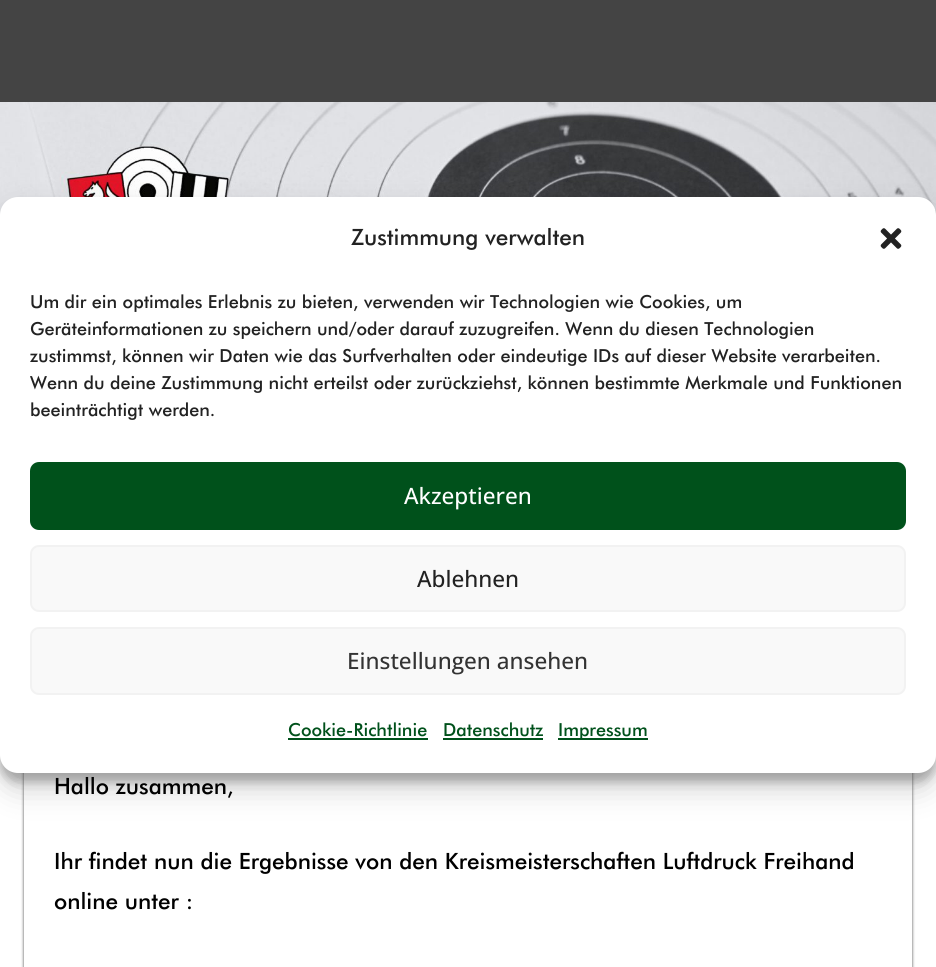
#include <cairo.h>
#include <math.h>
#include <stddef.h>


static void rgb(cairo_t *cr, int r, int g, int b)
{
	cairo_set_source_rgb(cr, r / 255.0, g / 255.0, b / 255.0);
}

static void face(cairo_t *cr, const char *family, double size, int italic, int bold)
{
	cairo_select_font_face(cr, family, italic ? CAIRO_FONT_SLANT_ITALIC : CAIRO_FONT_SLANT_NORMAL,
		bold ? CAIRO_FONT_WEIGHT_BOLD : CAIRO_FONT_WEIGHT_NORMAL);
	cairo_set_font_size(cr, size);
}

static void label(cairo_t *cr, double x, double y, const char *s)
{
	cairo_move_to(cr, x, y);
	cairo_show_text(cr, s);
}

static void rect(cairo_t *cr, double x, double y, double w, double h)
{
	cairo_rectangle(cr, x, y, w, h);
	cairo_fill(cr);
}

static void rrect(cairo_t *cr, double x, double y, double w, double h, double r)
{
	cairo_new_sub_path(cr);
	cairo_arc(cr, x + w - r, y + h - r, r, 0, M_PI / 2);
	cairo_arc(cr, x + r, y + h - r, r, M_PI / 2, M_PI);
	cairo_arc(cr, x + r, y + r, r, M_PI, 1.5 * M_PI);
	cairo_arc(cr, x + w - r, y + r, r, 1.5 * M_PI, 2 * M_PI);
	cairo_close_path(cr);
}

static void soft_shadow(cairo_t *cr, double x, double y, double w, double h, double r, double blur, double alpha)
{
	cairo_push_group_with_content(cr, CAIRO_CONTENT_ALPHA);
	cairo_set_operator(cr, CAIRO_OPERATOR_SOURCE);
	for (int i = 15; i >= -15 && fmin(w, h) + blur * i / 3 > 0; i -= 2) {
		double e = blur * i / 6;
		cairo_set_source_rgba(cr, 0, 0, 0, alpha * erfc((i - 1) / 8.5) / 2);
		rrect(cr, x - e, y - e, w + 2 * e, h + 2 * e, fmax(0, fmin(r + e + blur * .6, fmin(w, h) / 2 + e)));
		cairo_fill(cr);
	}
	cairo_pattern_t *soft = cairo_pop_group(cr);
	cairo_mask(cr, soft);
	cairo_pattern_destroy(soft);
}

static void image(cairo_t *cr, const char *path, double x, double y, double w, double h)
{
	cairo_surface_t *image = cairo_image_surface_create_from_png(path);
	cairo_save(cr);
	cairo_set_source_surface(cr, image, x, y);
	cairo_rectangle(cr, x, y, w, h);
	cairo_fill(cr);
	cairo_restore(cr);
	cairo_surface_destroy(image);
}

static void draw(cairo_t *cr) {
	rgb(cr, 255, 255, 255);
	cairo_paint(cr);
	image(cr, "image1.png", 0, 102, 936, 113);
	rgb(cr, 0, 0, 0);
	soft_shadow(cr, 0, 206, 936, 576, 18, 4.5, 0.23);
	soft_shadow(cr, 0, 212, 936, 576, 18, 15, 0.19);
	cairo_save(cr);
	cairo_set_fill_rule(cr, CAIRO_FILL_RULE_EVEN_ODD);
	cairo_new_path(cr);
	cairo_move_to(cr, 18, 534);
	cairo_line_to(cr, 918, 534);
	cairo_line_to(cr, 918, 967);
	cairo_line_to(cr, 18, 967);
	cairo_close_path(cr);
	cairo_move_to(cr, 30, 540);
	cairo_line_to(cr, 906, 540);
	cairo_curve_to(cr, 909.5, 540, 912, 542.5, 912, 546);
	cairo_line_to(cr, 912, 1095);
	cairo_curve_to(cr, 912, 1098.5, 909.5, 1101, 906, 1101);
	cairo_line_to(cr, 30, 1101);
	cairo_curve_to(cr, 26.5, 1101, 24, 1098.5, 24, 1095);
	cairo_line_to(cr, 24, 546);
	cairo_curve_to(cr, 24, 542.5, 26.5, 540, 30, 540);
	cairo_close_path(cr);
	cairo_clip(cr);
	rgb(cr, 68, 68, 68);
	soft_shadow(cr, 24, 540, 888, 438, 6, 1.5, 1);
	cairo_restore(cr);
	rgb(cr, 255, 255, 255);
	rrect(cr, 0, 197, 936, 576, 18);
	cairo_fill(cr);
	face(cr, "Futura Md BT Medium", 22.5, 0, 0);
	rgb(cr, 34, 34, 34);
	label(cr, 351, 245, "Zustimmung verwalten");
	image(cr, "image0.png", 880, 228, 22, 21);
	face(cr, "Futura Md BT Medium", 18, 0, 0);
	label(cr, 30, 308, "Um dir ein optimales Erlebnis zu bieten, verwenden wir Technologien wie Cookies, um");
	label(cr, 30, 335, "Geräteinformationen zu speichern und/oder darauf zuzugreifen. Wenn du diesen Technologien");
	label(cr, 30, 362, "zustimmst, können wir Daten wie das Surfverhalten oder eindeutige IDs auf dieser Website verarbeiten.");
	label(cr, 30, 389, "Wenn du deine Zustimmung nicht erteilst oder zurückziehst, können bestimmte Merkmale und Funktionen");
	label(cr, 30, 416, "beeinträchtigt werden.");
	rgb(cr, 0, 81, 27);
	rrect(cr, 31, 463, 874, 66, 8);
	cairo_fill_preserve(cr);
	cairo_stroke(cr);
	face(cr, "Open Sans Medium", 22.5, 0, 0);
	rgb(cr, 255, 255, 255);
	label(cr, 404, 504, "Akzeptieren");
	rgb(cr, 249, 249, 249);
	rrect(cr, 31, 546, 874, 65, 8);
	cairo_fill_preserve(cr);
	rgb(cr, 242, 242, 242);
	cairo_stroke(cr);
	rgb(cr, 34, 34, 34);
	label(cr, 417, 587, "Ablehnen");
	rgb(cr, 249, 249, 249);
	rrect(cr, 31, 628, 874, 66, 8);
	cairo_fill_preserve(cr);
	rgb(cr, 242, 242, 242);
	cairo_stroke(cr);
	rgb(cr, 51, 51, 51);
	label(cr, 347, 669, "Einstellungen ansehen");
	face(cr, "Futura Md BT Medium", 18, 0, 0);
	rgb(cr, 0, 81, 27);
	label(cr, 288, 736, "Cookie-Richtlinie");
	rect(cr, 288, 738, 140, 2);
	label(cr, 443, 736, "Datenschutz");
	rect(cr, 443, 738, 100, 2);
	rect(cr, 558, 738, 90, 2);
	label(cr, 558, 736, "Impressum");
	rgb(cr, 68, 68, 68);
	rect(cr, 0, 0, 936, 102);
	face(cr, "Futura Md BT Medium", 22.5, 0, 0);
	rgb(cr, 0, 0, 0);
	label(cr, 54, 794, "Hallo zusammen,");
	label(cr, 54, 869, "Ihr findet nun die Ergebnisse von den Kreismeisterschaften Luftdruck Freihand");
	label(cr, 54, 909, "online unter :");
}

int main(void) {
	cairo_surface_t *surface = cairo_image_surface_create(CAIRO_FORMAT_RGB24, 936, 967);
	cairo_t *cr = cairo_create(surface);
	cairo_font_options_t *options = cairo_font_options_create();
	cairo_font_options_set_hint_metrics(options, CAIRO_HINT_METRICS_OFF);
	cairo_font_options_set_hint_style(options, CAIRO_HINT_STYLE_NONE);
	cairo_set_font_options(cr, options);
	cairo_set_miter_limit(cr, 4);
	draw(cr);
	cairo_surface_write_to_png(surface, "render.png");
	cairo_font_options_destroy(options);
	cairo_destroy(cr);
	cairo_surface_destroy(surface);
	return 0;
}
